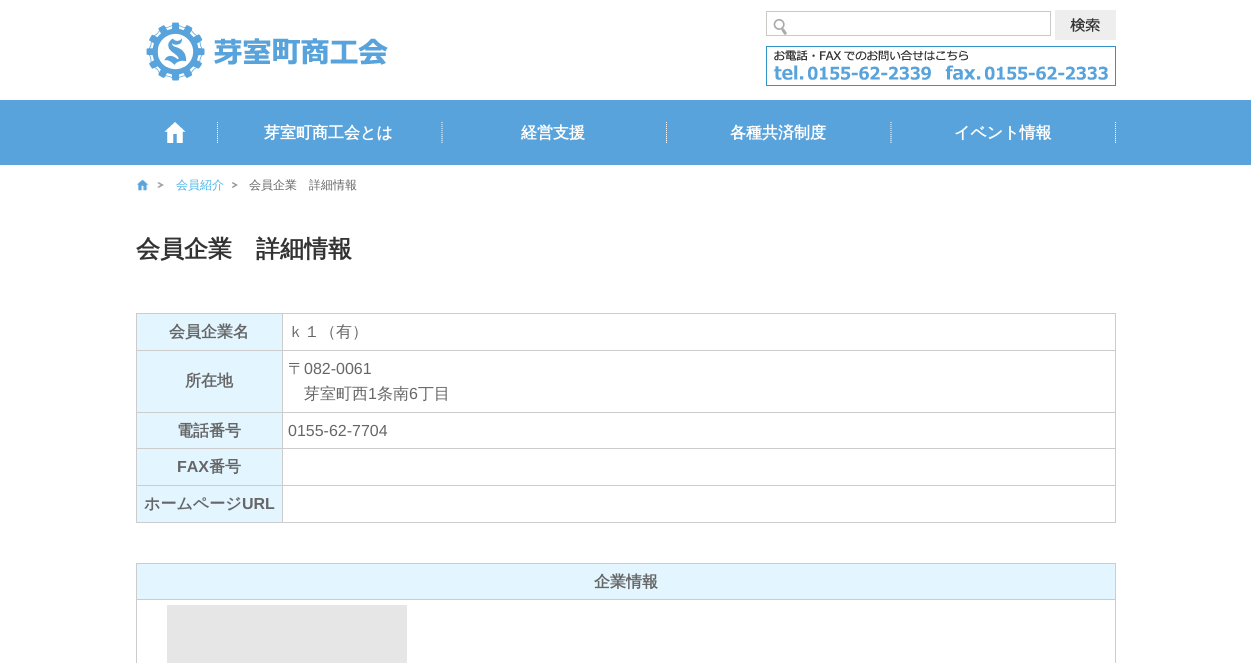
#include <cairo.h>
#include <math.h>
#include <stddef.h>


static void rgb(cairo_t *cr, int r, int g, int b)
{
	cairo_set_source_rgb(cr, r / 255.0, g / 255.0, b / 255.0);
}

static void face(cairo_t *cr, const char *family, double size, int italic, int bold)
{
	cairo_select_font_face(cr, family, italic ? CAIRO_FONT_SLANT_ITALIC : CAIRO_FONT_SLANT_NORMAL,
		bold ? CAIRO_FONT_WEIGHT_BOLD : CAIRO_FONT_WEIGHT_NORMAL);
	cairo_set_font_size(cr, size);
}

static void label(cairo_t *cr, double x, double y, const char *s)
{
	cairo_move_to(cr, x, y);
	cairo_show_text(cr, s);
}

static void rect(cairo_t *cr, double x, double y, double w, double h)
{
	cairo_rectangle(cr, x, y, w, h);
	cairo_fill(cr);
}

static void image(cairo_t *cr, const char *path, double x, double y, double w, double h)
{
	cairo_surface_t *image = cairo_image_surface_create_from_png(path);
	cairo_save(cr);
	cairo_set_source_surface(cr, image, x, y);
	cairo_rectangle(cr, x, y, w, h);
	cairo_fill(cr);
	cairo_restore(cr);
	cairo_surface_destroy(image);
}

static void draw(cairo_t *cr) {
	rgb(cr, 255, 255, 255);
	cairo_paint(cr);
	image(cr, "image0.png", 146, 22, 242, 59);
	image(cr, "image1.png", 773, 19, 14, 16);
	cairo_rectangle(cr, 766.5, 11.5, 284, 24);
	rgb(cr, 203, 201, 197);
	cairo_set_line_width(cr, 1);
	cairo_stroke(cr);
	image(cr, "image2.png", 1055, 10, 61, 30);
	image(cr, "image3.png", 766, 46, 350, 40);
	rgb(cr, 88, 163, 219);
	rect(cr, 0, 100, 1251, 65);
	image(cr, "image4.png", 217, 122, 899, 21);
	image(cr, "image5.png", 136, 122, 50, 21);
	face(cr, "WenQuanYi Zen Hei", 16, 0, 1);
	rgb(cr, 255, 255, 255);
	label(cr, 264, 138, "芽室町商工会とは");
	label(cr, 521, 138, "経営支援");
	label(cr, 730, 138, "各種共済制度");
	label(cr, 954, 138, "イベント情報");
	image(cr, "image6.png", 137, 179, 27, 12);
	image(cr, "image7.png", 232, 182, 6, 6);
	face(cr, "WenQuanYi Zen Hei Medium", 12, 0, 0);
	rgb(cr, 78, 182, 234);
	label(cr, 176, 189, "会員紹介");
	rgb(cr, 102, 102, 102);
	label(cr, 249, 189, "会員企業　詳細情報");
	face(cr, "WenQuanYi Zen Hei", 24, 0, 1);
	rgb(cr, 51, 51, 51);
	label(cr, 136, 257, "会員企業　詳細情報");
	rgb(cr, 204, 204, 204);
	rect(cr, 136, 313, 980, 1);
	rect(cr, 1115, 313, 1, 210);
	rect(cr, 136, 522, 980, 1);
	rect(cr, 136, 313, 1, 210);
	rgb(cr, 227, 245, 255);
	rect(cr, 137, 314, 145, 36);
	face(cr, "WenQuanYi Zen Hei", 16, 0, 1);
	rgb(cr, 102, 102, 102);
	label(cr, 169, 337, "会員企業名");
	rgb(cr, 204, 204, 204);
	rect(cr, 282, 350, 834, 1);
	rect(cr, 282, 412, 834, 1);
	rect(cr, 282, 448, 834, 1);
	rect(cr, 282, 485, 834, 1);
	rect(cr, 282, 485, 1, 38);
	rect(cr, 136, 485, 147, 1);
	rect(cr, 282, 448, 1, 38);
	rect(cr, 136, 448, 147, 1);
	rect(cr, 282, 412, 1, 37);
	rect(cr, 136, 412, 147, 1);
	rect(cr, 282, 350, 1, 63);
	rect(cr, 136, 350, 147, 1);
	rect(cr, 282, 313, 1, 38);
	face(cr, "WenQuanYi Zen Hei Medium", 16, 0, 0);
	rgb(cr, 102, 102, 102);
	label(cr, 288, 337, "ｋ１（有）");
	rgb(cr, 227, 245, 255);
	rect(cr, 137, 351, 145, 61);
	face(cr, "WenQuanYi Zen Hei", 16, 0, 1);
	rgb(cr, 102, 102, 102);
	label(cr, 185, 386, "所在地");
	face(cr, "WenQuanYi Zen Hei Medium", 16, 0, 0);
	label(cr, 288, 374, "〒");
	face(cr, "Liberation Sans", 16, 0, 0);
	label(cr, 304, 374, "082-0061");
	face(cr, "WenQuanYi Zen Hei Medium", 16, 0, 0);
	label(cr, 304, 399, "芽室町西");
	face(cr, "Liberation Sans", 16, 0, 0);
	label(cr, 368, 399, "1");
	face(cr, "WenQuanYi Zen Hei Medium", 16, 0, 0);
	label(cr, 377, 399, "条南");
	face(cr, "Liberation Sans", 16, 0, 0);
	label(cr, 409, 399, "6");
	face(cr, "WenQuanYi Zen Hei Medium", 16, 0, 0);
	label(cr, 418, 399, "丁目");
	rgb(cr, 227, 245, 255);
	rect(cr, 137, 413, 145, 35);
	face(cr, "WenQuanYi Zen Hei", 16, 0, 1);
	rgb(cr, 102, 102, 102);
	label(cr, 177, 436, "電話番号");
	face(cr, "Liberation Sans", 16, 0, 0);
	label(cr, 288, 436, "0155-62-7704");
	rgb(cr, 227, 245, 255);
	rect(cr, 137, 449, 145, 36);
	face(cr, "Liberation Sans", 16, 0, 1);
	rgb(cr, 102, 102, 102);
	label(cr, 177, 472, "FAX");
	face(cr, "WenQuanYi Zen Hei", 16, 0, 1);
	label(cr, 209, 472, "番号");
	rgb(cr, 227, 245, 255);
	rect(cr, 137, 486, 145, 36);
	rgb(cr, 102, 102, 102);
	label(cr, 144, 509, "ホームページ");
	face(cr, "Liberation Sans", 16, 0, 1);
	label(cr, 242, 509, "URL");
	rgb(cr, 204, 204, 204);
	rect(cr, 136, 563, 980, 1);
	rect(cr, 1115, 563, 1, 100);
	rect(cr, 136, 563, 1, 100);
	rgb(cr, 227, 245, 255);
	rect(cr, 137, 564, 978, 35);
	face(cr, "WenQuanYi Zen Hei", 16, 0, 1);
	rgb(cr, 102, 102, 102);
	label(cr, 594, 587, "企業情報");
	rgb(cr, 204, 204, 204);
	rect(cr, 136, 599, 980, 1);
	rgb(cr, 230, 230, 230);
	rect(cr, 167, 605, 240, 58);
}

int main(void) {
	cairo_surface_t *surface = cairo_image_surface_create(CAIRO_FORMAT_RGB24, 1251, 663);
	cairo_t *cr = cairo_create(surface);
	cairo_font_options_t *options = cairo_font_options_create();
	cairo_font_options_set_hint_metrics(options, CAIRO_HINT_METRICS_OFF);
	cairo_font_options_set_hint_style(options, CAIRO_HINT_STYLE_NONE);
	cairo_set_font_options(cr, options);
	cairo_set_miter_limit(cr, 4);
	draw(cr);
	cairo_surface_write_to_png(surface, "render.png");
	cairo_font_options_destroy(options);
	cairo_destroy(cr);
	cairo_surface_destroy(surface);
	return 0;
}
